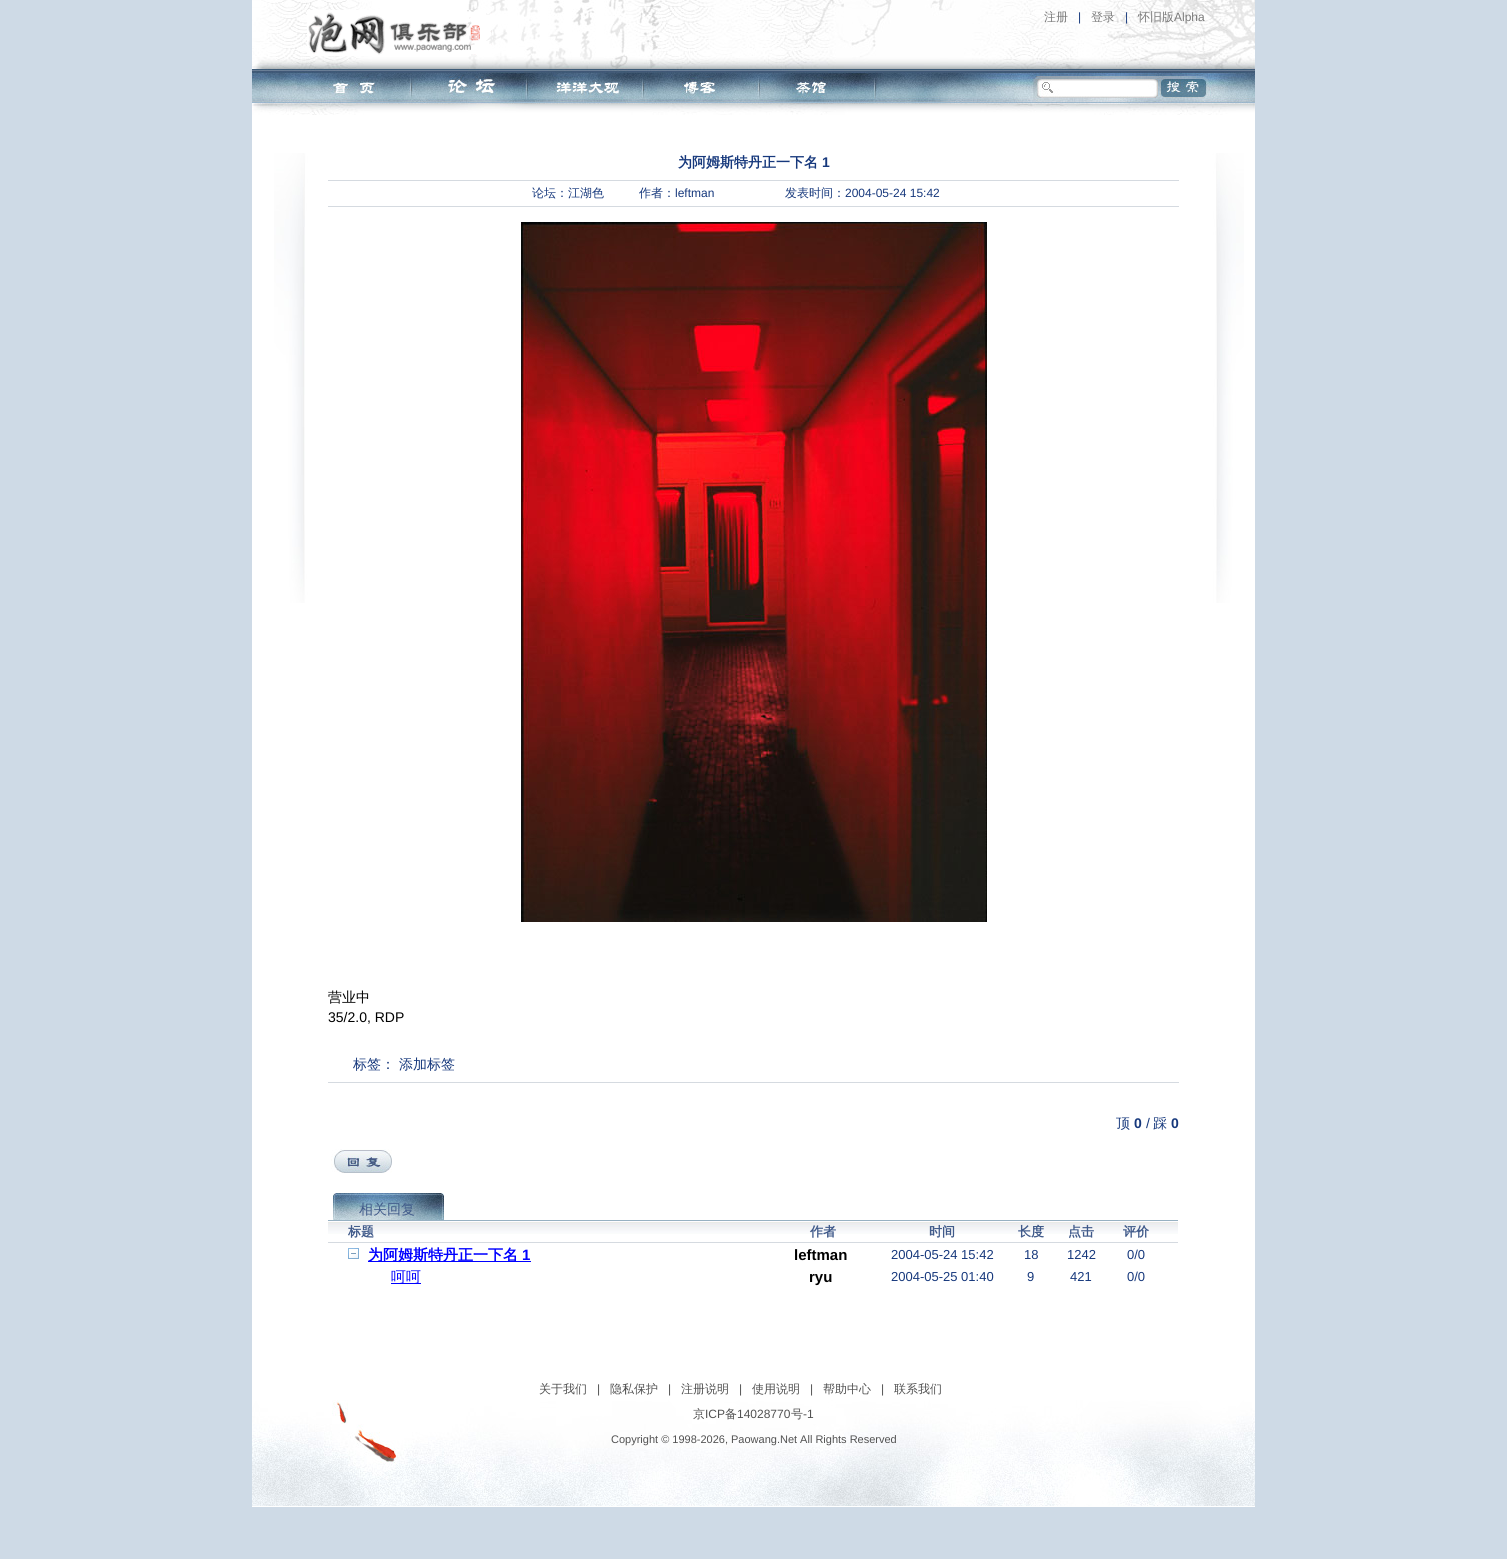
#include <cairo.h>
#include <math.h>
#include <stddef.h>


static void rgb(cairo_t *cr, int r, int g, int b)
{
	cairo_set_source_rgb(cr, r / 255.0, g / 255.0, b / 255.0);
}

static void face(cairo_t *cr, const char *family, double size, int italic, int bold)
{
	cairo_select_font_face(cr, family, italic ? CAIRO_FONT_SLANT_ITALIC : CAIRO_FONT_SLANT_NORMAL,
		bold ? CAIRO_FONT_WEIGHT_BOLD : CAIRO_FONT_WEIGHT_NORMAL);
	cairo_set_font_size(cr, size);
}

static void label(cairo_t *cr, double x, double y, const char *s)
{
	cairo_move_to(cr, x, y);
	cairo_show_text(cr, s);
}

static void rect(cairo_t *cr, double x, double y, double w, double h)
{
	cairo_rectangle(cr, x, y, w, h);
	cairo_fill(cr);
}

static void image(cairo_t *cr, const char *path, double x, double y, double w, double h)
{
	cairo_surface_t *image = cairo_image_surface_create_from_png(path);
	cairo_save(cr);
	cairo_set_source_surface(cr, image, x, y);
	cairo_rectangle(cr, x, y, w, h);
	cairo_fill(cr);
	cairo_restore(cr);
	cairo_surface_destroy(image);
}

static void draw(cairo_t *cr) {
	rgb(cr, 206, 218, 230);
	cairo_paint(cr);
	rgb(cr, 255, 255, 255);
	rect(cr, 252, 115, 1003, 1392);
	image(cr, "image0.png", 252, 0, 1003, 115);
	image(cr, "image1.png", 307, 10, 185, 46);
	face(cr, "WenQuanYi Zen Hei Medium", 12, 0, 0);
	rgb(cr, 121, 121, 121);
	label(cr, 1044, 21, "注册");
	face(cr, "Liberation Sans", 12, 0, 0);
	rgb(cr, 22, 56, 124);
	label(cr, 1078, 21, "|");
	face(cr, "WenQuanYi Zen Hei Medium", 12, 0, 0);
	rgb(cr, 121, 121, 121);
	label(cr, 1091, 21, "登录");
	face(cr, "Liberation Sans", 12, 0, 0);
	rgb(cr, 22, 56, 124);
	label(cr, 1125, 21, "|");
	face(cr, "WenQuanYi Zen Hei Medium", 12, 0, 0);
	rgb(cr, 121, 121, 121);
	label(cr, 1138, 21, "怀旧版");
	face(cr, "Liberation Sans", 12, 0, 0);
	label(cr, 1174, 21, "Alpha");
	image(cr, "image2.png", 297, 75, 116, 24);
	image(cr, "image3.png", 413, 75, 116, 24);
	image(cr, "image4.png", 529, 75, 116, 24);
	image(cr, "image5.png", 645, 75, 116, 24);
	image(cr, "image6.png", 761, 75, 116, 24);
	image(cr, "image7.png", 1166, 80, 33, 14);
	image(cr, "image8.png", 274, 153, 970, 450);
	rgb(cr, 213, 218, 224);
	rect(cr, 328, 180, 851, 1);
	face(cr, "WenQuanYi Zen Hei", 14, 0, 1);
	rgb(cr, 22, 56, 124);
	label(cr, 678, 167, "为阿姆斯特丹正一下名");
	face(cr, "Liberation Sans", 14, 0, 1);
	label(cr, 822, 167, "1");
	rgb(cr, 213, 218, 224);
	rect(cr, 328, 206, 851, 1);
	face(cr, "WenQuanYi Zen Hei Medium", 12, 0, 0);
	rgb(cr, 22, 56, 124);
	label(cr, 532, 197, "论坛：江湖色");
	label(cr, 639, 197, "作者：");
	face(cr, "Liberation Sans", 12, 0, 0);
	label(cr, 675, 197, "leftman");
	face(cr, "WenQuanYi Zen Hei Medium", 12, 0, 0);
	label(cr, 785, 197, "发表时间：");
	face(cr, "Liberation Sans", 12, 0, 0);
	label(cr, 845, 197, "2004-05-24 15:42");
	image(cr, "image9.png", 521, 222, 466, 700);
	face(cr, "WenQuanYi Zen Hei Medium", 14, 0, 0);
	rgb(cr, 0, 0, 0);
	label(cr, 328, 1002, "营业中");
	face(cr, "Liberation Sans", 14, 0, 0);
	label(cr, 328, 1022, "35/2.0, RDP");
	rgb(cr, 213, 218, 224);
	rect(cr, 328, 1082, 851, 1);
	face(cr, "WenQuanYi Zen Hei Medium", 14, 0, 0);
	rgb(cr, 22, 56, 124);
	label(cr, 353, 1069, "标签：");
	label(cr, 399, 1069, "添加标签");
	label(cr, 1116, 1128, "顶");
	face(cr, "Liberation Sans", 14, 0, 1);
	label(cr, 1134, 1128, "0");
	face(cr, "Liberation Sans", 14, 0, 0);
	label(cr, 1146, 1128, "/");
	face(cr, "WenQuanYi Zen Hei Medium", 14, 0, 0);
	label(cr, 1153, 1128, "踩");
	face(cr, "Liberation Sans", 14, 0, 1);
	label(cr, 1171, 1128, "0");
	image(cr, "image10.png", 331, 1149, 61, 24);
	image(cr, "image11.png", 333, 1193, 111, 27);
	face(cr, "WenQuanYi Zen Hei Medium", 14, 0, 0);
	rgb(cr, 64, 90, 138);
	label(cr, 359, 1214, "相关回复");
	image(cr, "image12.png", 328, 1220, 850, 14);
	rgb(cr, 213, 218, 224);
	rect(cr, 328, 1242, 850, 1);
	face(cr, "WenQuanYi Zen Hei", 13, 0, 1);
	rgb(cr, 64, 90, 138);
	label(cr, 348, 1236, "标题");
	label(cr, 810, 1236, "作者");
	label(cr, 929, 1236, "时间");
	label(cr, 1018, 1236, "长度");
	label(cr, 1068, 1236, "点击");
	label(cr, 1123, 1236, "评价");
	image(cr, "image13.png", 348, 1248, 11, 11);
	rgb(cr, 0, 0, 255);
	rect(cr, 368, 1261, 163, 1);
	face(cr, "WenQuanYi Zen Hei", 15, 0, 1);
	label(cr, 368, 1260, "为阿姆斯特丹正一下名");
	face(cr, "Liberation Sans", 15, 0, 1);
	label(cr, 522, 1260, "1");
	rgb(cr, 0, 0, 0);
	label(cr, 794, 1260, "leftman");
	face(cr, "Liberation Sans", 13, 0, 0);
	rgb(cr, 22, 56, 124);
	label(cr, 891, 1259, "2004-05-24 15:42");
	label(cr, 1024, 1259, "18");
	label(cr, 1067, 1259, "1242");
	label(cr, 1127, 1259, "0/0");
	rgb(cr, 0, 0, 255);
	rect(cr, 391, 1283, 30, 1);
	face(cr, "WenQuanYi Zen Hei Medium", 15, 0, 0);
	label(cr, 391, 1282, "呵呵");
	face(cr, "Liberation Sans", 15, 0, 1);
	rgb(cr, 0, 0, 0);
	label(cr, 809, 1282, "ryu");
	face(cr, "Liberation Sans", 13, 0, 0);
	rgb(cr, 22, 56, 124);
	label(cr, 891, 1281, "2004-05-25 01:40");
	label(cr, 1027, 1281, "9");
	label(cr, 1070, 1281, "421");
	label(cr, 1127, 1281, "0/0");
	image(cr, "image14.png", 252, 1400, 1003, 106);
	face(cr, "WenQuanYi Zen Hei Medium", 12, 0, 0);
	rgb(cr, 81, 81, 81);
	label(cr, 539, 1393, "关于我们");
	face(cr, "Liberation Sans", 12, 0, 0);
	label(cr, 597, 1393, "|");
	face(cr, "WenQuanYi Zen Hei Medium", 12, 0, 0);
	label(cr, 610, 1393, "隐私保护");
	face(cr, "Liberation Sans", 12, 0, 0);
	label(cr, 668, 1393, "|");
	face(cr, "WenQuanYi Zen Hei Medium", 12, 0, 0);
	label(cr, 681, 1393, "注册说明");
	face(cr, "Liberation Sans", 12, 0, 0);
	label(cr, 739, 1393, "|");
	face(cr, "WenQuanYi Zen Hei Medium", 12, 0, 0);
	label(cr, 752, 1393, "使用说明");
	face(cr, "Liberation Sans", 12, 0, 0);
	label(cr, 810, 1393, "|");
	face(cr, "WenQuanYi Zen Hei Medium", 12, 0, 0);
	label(cr, 823, 1393, "帮助中心");
	face(cr, "Liberation Sans", 12, 0, 0);
	label(cr, 881, 1393, "|");
	face(cr, "WenQuanYi Zen Hei Medium", 12, 0, 0);
	label(cr, 894, 1393, "联系我们");
	label(cr, 693, 1418, "京");
	face(cr, "Liberation Sans", 12, 0, 0);
	label(cr, 705, 1418, "ICP");
	face(cr, "WenQuanYi Zen Hei Medium", 12, 0, 0);
	label(cr, 725, 1418, "备");
	face(cr, "Liberation Sans", 12, 0, 0);
	label(cr, 737, 1418, "14028770");
	face(cr, "WenQuanYi Zen Hei Medium", 12, 0, 0);
	label(cr, 791, 1418, "号");
	face(cr, "Liberation Sans", 12, 0, 0);
	label(cr, 803, 1418, "-1");
	face(cr, "Liberation Sans", 11, 0, 0);
	label(cr, 611, 1443, "Copyright © 1998-2026, Paowang.Net All Rights Reserved");
}

int main(void) {
	cairo_surface_t *surface = cairo_image_surface_create(CAIRO_FORMAT_RGB24, 1507, 1559);
	cairo_t *cr = cairo_create(surface);
	cairo_font_options_t *options = cairo_font_options_create();
	cairo_font_options_set_hint_metrics(options, CAIRO_HINT_METRICS_OFF);
	cairo_font_options_set_hint_style(options, CAIRO_HINT_STYLE_NONE);
	cairo_set_font_options(cr, options);
	cairo_set_miter_limit(cr, 4);
	draw(cr);
	cairo_surface_write_to_png(surface, "render.png");
	cairo_font_options_destroy(options);
	cairo_destroy(cr);
	cairo_surface_destroy(surface);
	return 0;
}
